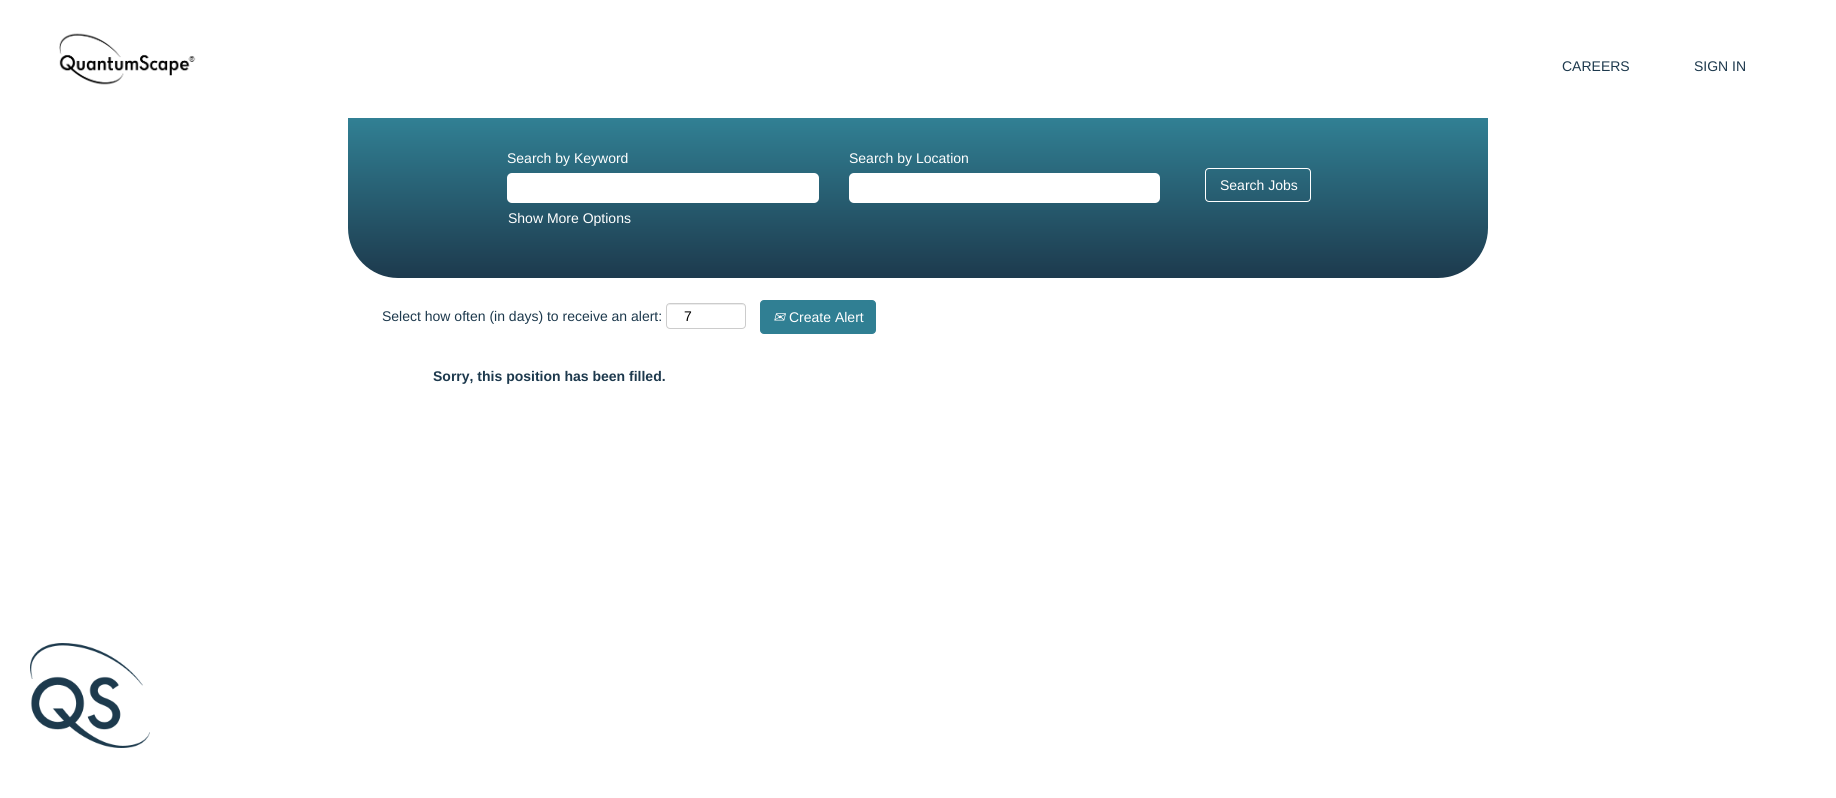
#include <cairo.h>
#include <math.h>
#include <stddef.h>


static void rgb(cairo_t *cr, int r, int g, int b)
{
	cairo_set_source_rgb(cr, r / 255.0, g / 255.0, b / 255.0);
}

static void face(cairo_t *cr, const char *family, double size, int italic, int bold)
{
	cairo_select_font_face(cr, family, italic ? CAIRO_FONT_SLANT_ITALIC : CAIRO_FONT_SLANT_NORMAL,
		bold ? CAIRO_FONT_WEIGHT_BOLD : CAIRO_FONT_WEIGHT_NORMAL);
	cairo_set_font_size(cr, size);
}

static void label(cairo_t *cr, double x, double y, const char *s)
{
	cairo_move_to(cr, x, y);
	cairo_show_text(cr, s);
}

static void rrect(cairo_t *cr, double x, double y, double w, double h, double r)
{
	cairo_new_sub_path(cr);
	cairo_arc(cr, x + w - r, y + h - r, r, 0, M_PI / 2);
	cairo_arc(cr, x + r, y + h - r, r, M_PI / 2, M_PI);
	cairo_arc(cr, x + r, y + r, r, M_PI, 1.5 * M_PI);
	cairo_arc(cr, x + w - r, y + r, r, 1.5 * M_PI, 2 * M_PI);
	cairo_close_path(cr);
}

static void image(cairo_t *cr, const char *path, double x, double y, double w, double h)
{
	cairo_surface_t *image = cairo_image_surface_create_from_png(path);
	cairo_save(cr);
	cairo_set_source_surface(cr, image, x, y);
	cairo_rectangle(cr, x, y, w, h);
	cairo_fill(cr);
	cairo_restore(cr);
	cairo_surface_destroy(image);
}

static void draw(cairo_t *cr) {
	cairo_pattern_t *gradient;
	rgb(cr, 255, 255, 255);
	cairo_paint(cr);
	image(cr, "image0.png", 59, 33, 137, 52);
	face(cr, "Liberation Sans", 14, 0, 0);
	rgb(cr, 29, 57, 77);
	label(cr, 1562, 71, "CAREERS");
	label(cr, 1694, 71, "SIGN IN");
	gradient = cairo_pattern_create_linear(918, 118, 918, 278);
	cairo_pattern_add_color_stop_rgba(gradient, 0, 0.192, 0.502, 0.58, 1);
	cairo_pattern_add_color_stop_rgba(gradient, 1, 0.114, 0.227, 0.302, 1);
	cairo_set_source(cr, gradient);
	cairo_pattern_destroy(gradient);
	cairo_new_path(cr);
	cairo_move_to(cr, 348, 118);
	cairo_line_to(cr, 1488, 118);
	cairo_line_to(cr, 1488, 228);
	cairo_curve_to(cr, 1488, 255.5, 1465.5, 278, 1438, 278);
	cairo_line_to(cr, 398, 278);
	cairo_curve_to(cr, 370.5, 278, 348, 255.5, 348, 228);
	cairo_close_path(cr);
	cairo_fill(cr);
	rgb(cr, 255, 255, 255);
	label(cr, 507, 163, "Search by Keyword");
	rrect(cr, 507, 173, 312, 30, 5);
	cairo_fill(cr);
	label(cr, 849, 163, "Search by Location");
	rrect(cr, 849, 173, 311, 30, 5);
	cairo_fill(cr);
	label(cr, 508, 223, "Show More Options");
	rrect(cr, 1205.5, 168.5, 105, 33, 3.5);
	cairo_set_line_width(cr, 1);
	cairo_stroke(cr);
	label(cr, 1220, 190, "Search Jobs");
	rgb(cr, 29, 57, 77);
	label(cr, 382, 321, "Select how often (in days) to receive an alert:");
	rgb(cr, 236, 236, 236);
	cairo_new_path(cr);
	cairo_move_to(cr, 670, 305);
	cairo_line_to(cr, 742, 305);
	cairo_curve_to(cr, 744, 305, 745, 306, 745, 308);
	cairo_curve_to(cr, 745, 301, 734, 304, 730, 304);
	cairo_line_to(cr, 682, 304);
	cairo_curve_to(cr, 678, 304, 667, 301, 667, 308);
	cairo_curve_to(cr, 667, 306, 668, 305, 670, 305);
	cairo_close_path(cr);
	cairo_fill(cr);
	rrect(cr, 666.5, 303.5, 79, 25, 3.5);
	rgb(cr, 204, 204, 204);
	cairo_stroke(cr);
	rgb(cr, 0, 0, 0);
	label(cr, 684, 321, "7");
	rgb(cr, 48, 127, 147);
	rrect(cr, 760.5, 300.5, 115, 33, 3.5);
	cairo_fill_preserve(cr);
	cairo_stroke(cr);
	face(cr, "DejaVu Sans", 14, 1, 0);
	rgb(cr, 255, 255, 255);
	label(cr, 773, 322, "✉");
	face(cr, "Liberation Sans", 14, 0, 0);
	label(cr, 789, 322, "Create Alert");
	face(cr, "Liberation Sans", 14, 0, 1);
	rgb(cr, 29, 57, 77);
	label(cr, 433, 381, "Sorry, this position has been filled.");
	image(cr, "image1.png", 30, 643, 120, 105);
}

int main(void) {
	cairo_surface_t *surface = cairo_image_surface_create(CAIRO_FORMAT_RGB24, 1836, 798);
	cairo_t *cr = cairo_create(surface);
	cairo_font_options_t *options = cairo_font_options_create();
	cairo_font_options_set_hint_metrics(options, CAIRO_HINT_METRICS_OFF);
	cairo_font_options_set_hint_style(options, CAIRO_HINT_STYLE_NONE);
	cairo_set_font_options(cr, options);
	cairo_set_miter_limit(cr, 4);
	draw(cr);
	cairo_surface_write_to_png(surface, "render.png");
	cairo_font_options_destroy(options);
	cairo_destroy(cr);
	cairo_surface_destroy(surface);
	return 0;
}
